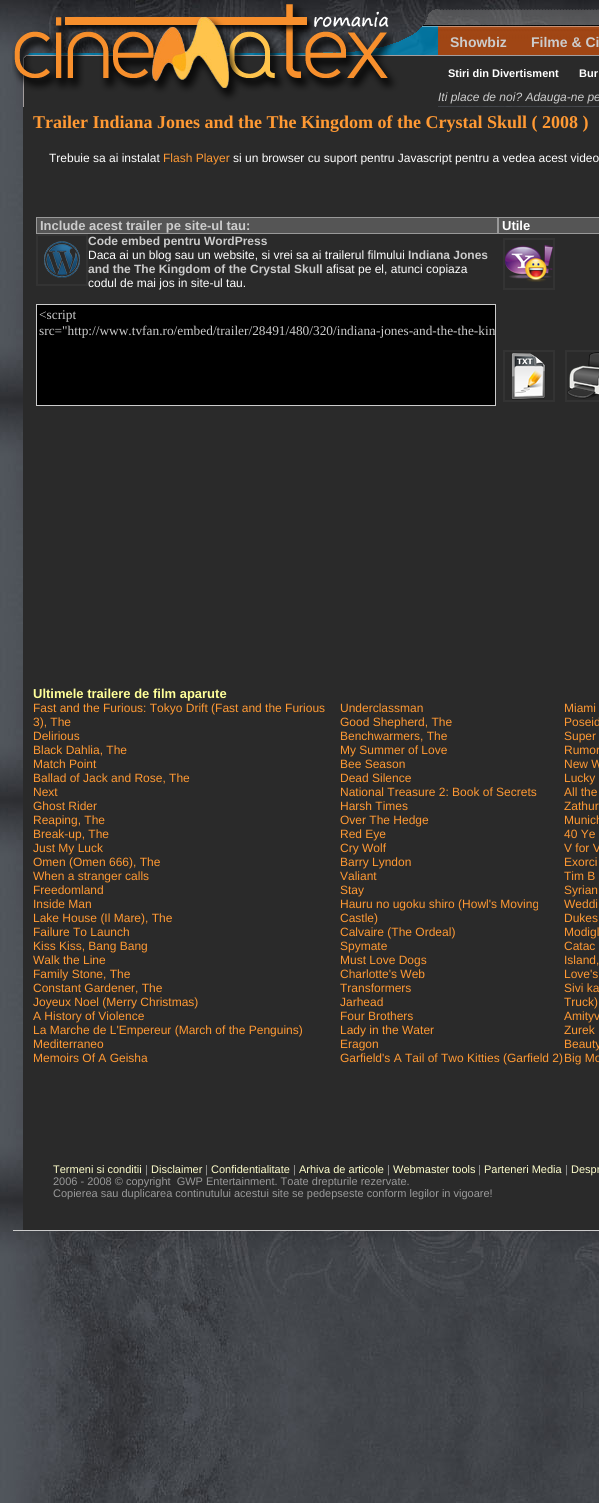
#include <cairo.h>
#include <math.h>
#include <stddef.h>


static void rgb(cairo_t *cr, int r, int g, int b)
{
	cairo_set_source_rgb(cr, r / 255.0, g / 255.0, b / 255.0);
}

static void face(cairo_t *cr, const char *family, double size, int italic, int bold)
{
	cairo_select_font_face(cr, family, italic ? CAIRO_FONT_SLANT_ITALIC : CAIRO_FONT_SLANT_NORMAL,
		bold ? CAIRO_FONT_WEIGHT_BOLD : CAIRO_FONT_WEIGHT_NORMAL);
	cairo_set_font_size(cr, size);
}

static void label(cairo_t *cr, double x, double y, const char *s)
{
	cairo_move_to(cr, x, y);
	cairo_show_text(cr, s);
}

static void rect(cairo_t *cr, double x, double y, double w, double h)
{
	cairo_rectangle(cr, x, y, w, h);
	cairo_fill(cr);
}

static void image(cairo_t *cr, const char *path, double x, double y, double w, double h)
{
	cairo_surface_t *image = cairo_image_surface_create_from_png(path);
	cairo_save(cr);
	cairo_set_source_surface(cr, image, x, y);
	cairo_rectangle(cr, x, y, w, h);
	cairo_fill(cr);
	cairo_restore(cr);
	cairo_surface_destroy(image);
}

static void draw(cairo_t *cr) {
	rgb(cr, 255, 255, 255);
	cairo_paint(cr);
	image(cr, "image0.png", 0, 0, 599, 1503);
	image(cr, "image1.png", 12, 4, 426, 103);
	image(cr, "image2.png", 438, 9, 161, 97);
	face(cr, "Liberation Sans", 14, 0, 1);
	rgb(cr, 204, 204, 204);
	label(cr, 450, 47, "Showbiz");
	label(cr, 531, 47, "Filme & Ci");
	face(cr, "Liberation Sans", 11, 0, 1);
	rgb(cr, 255, 255, 255);
	label(cr, 448, 77, "Stiri din Divertisment");
	label(cr, 579, 77, "Bur");
	face(cr, "Liberation Sans", 12, 1, 0);
	rgb(cr, 204, 204, 204);
	label(cr, 438, 101, "Iti place de noi? Adauga-ne pe");
	rgb(cr, 42, 42, 42);
	rect(cr, 23, 107, 576, 1123);
	face(cr, "Liberation Serif", 18, 0, 1);
	rgb(cr, 255, 153, 51);
	label(cr, 33, 128, "Trailer Indiana Jones and the The Kingdom of the Crystal Skull ( 2008 )");
	face(cr, "Liberation Sans", 12, 0, 0);
	rgb(cr, 255, 255, 255);
	label(cr, 49, 162, "Trebuie sa ai instalat");
	rgb(cr, 255, 153, 51);
	label(cr, 163, 162, "Flash Player");
	rgb(cr, 255, 255, 255);
	label(cr, 233, 162, "si un browser cu suport pentru Javascript pentru a vedea acest video");
	rgb(cr, 85, 85, 85);
	cairo_rectangle(cr, 36.5, 217.5, 461, 16);
	cairo_fill_preserve(cr);
	rgb(cr, 153, 153, 153);
	cairo_set_line_width(cr, 1);
	cairo_stroke(cr);
	face(cr, "Liberation Sans", 13, 0, 1);
	rgb(cr, 204, 204, 204);
	label(cr, 40, 230, "Include acest trailer pe site-ul tau:");
	rgb(cr, 85, 85, 85);
	cairo_rectangle(cr, 498.5, 217.5, 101, 16);
	cairo_fill_preserve(cr);
	rgb(cr, 153, 153, 153);
	cairo_stroke(cr);
	rgb(cr, 255, 255, 255);
	label(cr, 502, 230, "Utile");
	cairo_rectangle(cr, 37, 235, 50, 50);
	rgb(cr, 51, 51, 51);
	cairo_set_line_width(cr, 2);
	cairo_stroke(cr);
	image(cr, "image3.png", 44, 241, 36, 37);
	face(cr, "Liberation Sans", 12, 0, 1);
	rgb(cr, 204, 204, 204);
	label(cr, 88, 245, "Code embed pentru WordPress");
	face(cr, "Liberation Sans", 12, 0, 0);
	rgb(cr, 255, 255, 255);
	label(cr, 88, 259, "Daca ai un blog sau un website, si vrei sa ai trailerul filmului");
	face(cr, "Liberation Sans", 12, 0, 1);
	rgb(cr, 204, 204, 204);
	label(cr, 408, 259, "Indiana Jones");
	label(cr, 88, 273, "and the The Kingdom of the Crystal Skull");
	face(cr, "Liberation Sans", 12, 0, 0);
	rgb(cr, 255, 255, 255);
	label(cr, 326, 273, "afisat pe el, atunci copiaza");
	label(cr, 88, 287, "codul de mai jos in site-ul tau.");
	rgb(cr, 0, 0, 0);
	cairo_rectangle(cr, 36.5, 304.5, 459, 101);
	cairo_fill_preserve(cr);
	rgb(cr, 204, 204, 204);
	cairo_set_line_width(cr, 1);
	cairo_stroke(cr);
	face(cr, "Liberation Serif", 13.35, 0, 0);
	label(cr, 39, 319, "<script");
	label(cr, 39, 335, "src=\"http://www.tvfan.ro/embed/trailer/28491/480/320/indiana-jones-and-the-the-kin");
	cairo_rectangle(cr, 504, 239, 50, 50);
	rgb(cr, 51, 51, 51);
	cairo_set_line_width(cr, 2);
	cairo_stroke(cr);
	image(cr, "image4.png", 505, 245, 48, 37);
	cairo_rectangle(cr, 504, 351, 50, 50);
	cairo_stroke(cr);
	cairo_rectangle(cr, 566, 351, 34, 50);
	cairo_stroke(cr);
	image(cr, "image5.png", 511, 353, 35, 47);
	image(cr, "image6.png", 567, 352, 32, 47);
	face(cr, "Liberation Sans", 13, 0, 1);
	rgb(cr, 255, 255, 153);
	label(cr, 33, 698, "Ultimele trailere de film aparute");
	face(cr, "Liberation Sans", 12, 0, 0);
	rgb(cr, 255, 153, 51);
	label(cr, 33, 712, "Fast and the Furious: Tokyo Drift (Fast and the Furious");
	label(cr, 33, 726, "3), The");
	label(cr, 33, 740, "Delirious");
	label(cr, 33, 754, "Black Dahlia, The");
	label(cr, 33, 768, "Match Point");
	label(cr, 33, 782, "Ballad of Jack and Rose, The");
	label(cr, 33, 796, "Next");
	label(cr, 33, 810, "Ghost Rider");
	label(cr, 33, 824, "Reaping, The");
	label(cr, 33, 838, "Break-up, The");
	label(cr, 33, 852, "Just My Luck");
	label(cr, 33, 866, "Omen (Omen 666), The");
	label(cr, 33, 880, "When a stranger calls");
	label(cr, 33, 894, "Freedomland");
	label(cr, 33, 908, "Inside Man");
	label(cr, 33, 922, "Lake House (Il Mare), The");
	label(cr, 33, 936, "Failure To Launch");
	label(cr, 33, 950, "Kiss Kiss, Bang Bang");
	label(cr, 33, 964, "Walk the Line");
	label(cr, 33, 978, "Family Stone, The");
	label(cr, 33, 992, "Constant Gardener, The");
	label(cr, 33, 1006, "Joyeux Noel (Merry Christmas)");
	label(cr, 33, 1020, "A History of Violence");
	label(cr, 33, 1034, "La Marche de L'Empereur (March of the Penguins)");
	label(cr, 33, 1048, "Mediterraneo");
	label(cr, 33, 1062, "Memoirs Of A Geisha");
	label(cr, 340, 712, "Underclassman");
	label(cr, 340, 726, "Good Shepherd, The");
	label(cr, 340, 740, "Benchwarmers, The");
	label(cr, 340, 754, "My Summer of Love");
	label(cr, 340, 768, "Bee Season");
	label(cr, 340, 782, "Dead Silence");
	label(cr, 340, 796, "National Treasure 2: Book of Secrets");
	label(cr, 340, 810, "Harsh Times");
	label(cr, 340, 824, "Over The Hedge");
	label(cr, 340, 838, "Red Eye");
	label(cr, 340, 852, "Cry Wolf");
	label(cr, 340, 866, "Barry Lyndon");
	label(cr, 340, 880, "Valiant");
	label(cr, 340, 894, "Stay");
	label(cr, 340, 908, "Hauru no ugoku shiro (Howl's Moving");
	label(cr, 340, 922, "Castle)");
	label(cr, 340, 936, "Calvaire (The Ordeal)");
	label(cr, 340, 950, "Spymate");
	label(cr, 340, 964, "Must Love Dogs");
	label(cr, 340, 978, "Charlotte's Web");
	label(cr, 340, 992, "Transformers");
	label(cr, 340, 1006, "Jarhead");
	label(cr, 340, 1020, "Four Brothers");
	label(cr, 340, 1034, "Lady in the Water");
	label(cr, 340, 1048, "Eragon");
	label(cr, 340, 1062, "Garfield's A Tail of Two Kitties (Garfield 2)");
	label(cr, 564, 712, "Miami");
	label(cr, 564, 726, "Poseid");
	label(cr, 564, 740, "Super");
	label(cr, 564, 754, "Rumor");
	label(cr, 564, 768, "New W");
	label(cr, 564, 782, "Lucky");
	label(cr, 564, 796, "All the");
	label(cr, 564, 810, "Zathur");
	label(cr, 564, 824, "Munich");
	label(cr, 564, 838, "40 Ye");
	label(cr, 564, 852, "V for V");
	label(cr, 564, 866, "Exorci");
	label(cr, 564, 880, "Tim B");
	label(cr, 564, 894, "Syrian");
	label(cr, 564, 908, "Weddi");
	label(cr, 564, 922, "Dukes");
	label(cr, 564, 936, "Modigl");
	label(cr, 564, 950, "Catac");
	label(cr, 564, 964, "Island,");
	label(cr, 564, 978, "Love's");
	label(cr, 564, 992, "Sivi ka");
	label(cr, 564, 1006, "Truck)");
	label(cr, 564, 1020, "Amityv");
	label(cr, 564, 1034, "Zurek");
	label(cr, 564, 1048, "Beauty");
	label(cr, 564, 1062, "Big Mo");
	rgb(cr, 204, 204, 204);
	rect(cr, 13, 1230, 586, 1);
	face(cr, "Liberation Sans", 11, 0, 0);
	rgb(cr, 255, 255, 204);
	label(cr, 53, 1173, "Termeni si conditii");
	rgb(cr, 153, 153, 153);
	label(cr, 145, 1173, "|");
	rgb(cr, 255, 255, 204);
	label(cr, 151, 1173, "Disclaimer");
	rgb(cr, 153, 153, 153);
	label(cr, 205, 1173, "|");
	rgb(cr, 255, 255, 204);
	label(cr, 211, 1173, "Confidentialitate");
	rgb(cr, 153, 153, 153);
	label(cr, 293, 1173, "|");
	rgb(cr, 255, 255, 204);
	label(cr, 299, 1173, "Arhiva de articole");
	rgb(cr, 153, 153, 153);
	label(cr, 387, 1173, "|");
	rgb(cr, 255, 255, 204);
	label(cr, 393, 1173, "Webmaster tools");
	rgb(cr, 153, 153, 153);
	label(cr, 478, 1173, "|");
	rgb(cr, 255, 255, 204);
	label(cr, 484, 1173, "Parteneri Media");
	rgb(cr, 153, 153, 153);
	label(cr, 565, 1173, "|");
	rgb(cr, 255, 255, 204);
	label(cr, 571, 1173, "Despr");
	rgb(cr, 153, 153, 153);
	label(cr, 53, 1185, "2006 - 2008 © copyright  GWP Entertainment. Toate drepturile rezervate.");
	label(cr, 53, 1197, "Copierea sau duplicarea continutului acestui site se pedepseste conform legilor in vigoare!");
}

int main(void) {
	cairo_surface_t *surface = cairo_image_surface_create(CAIRO_FORMAT_RGB24, 599, 1503);
	cairo_t *cr = cairo_create(surface);
	cairo_font_options_t *options = cairo_font_options_create();
	cairo_font_options_set_hint_metrics(options, CAIRO_HINT_METRICS_OFF);
	cairo_font_options_set_hint_style(options, CAIRO_HINT_STYLE_NONE);
	cairo_set_font_options(cr, options);
	cairo_set_miter_limit(cr, 4);
	draw(cr);
	cairo_surface_write_to_png(surface, "render.png");
	cairo_font_options_destroy(options);
	cairo_destroy(cr);
	cairo_surface_destroy(surface);
	return 0;
}
